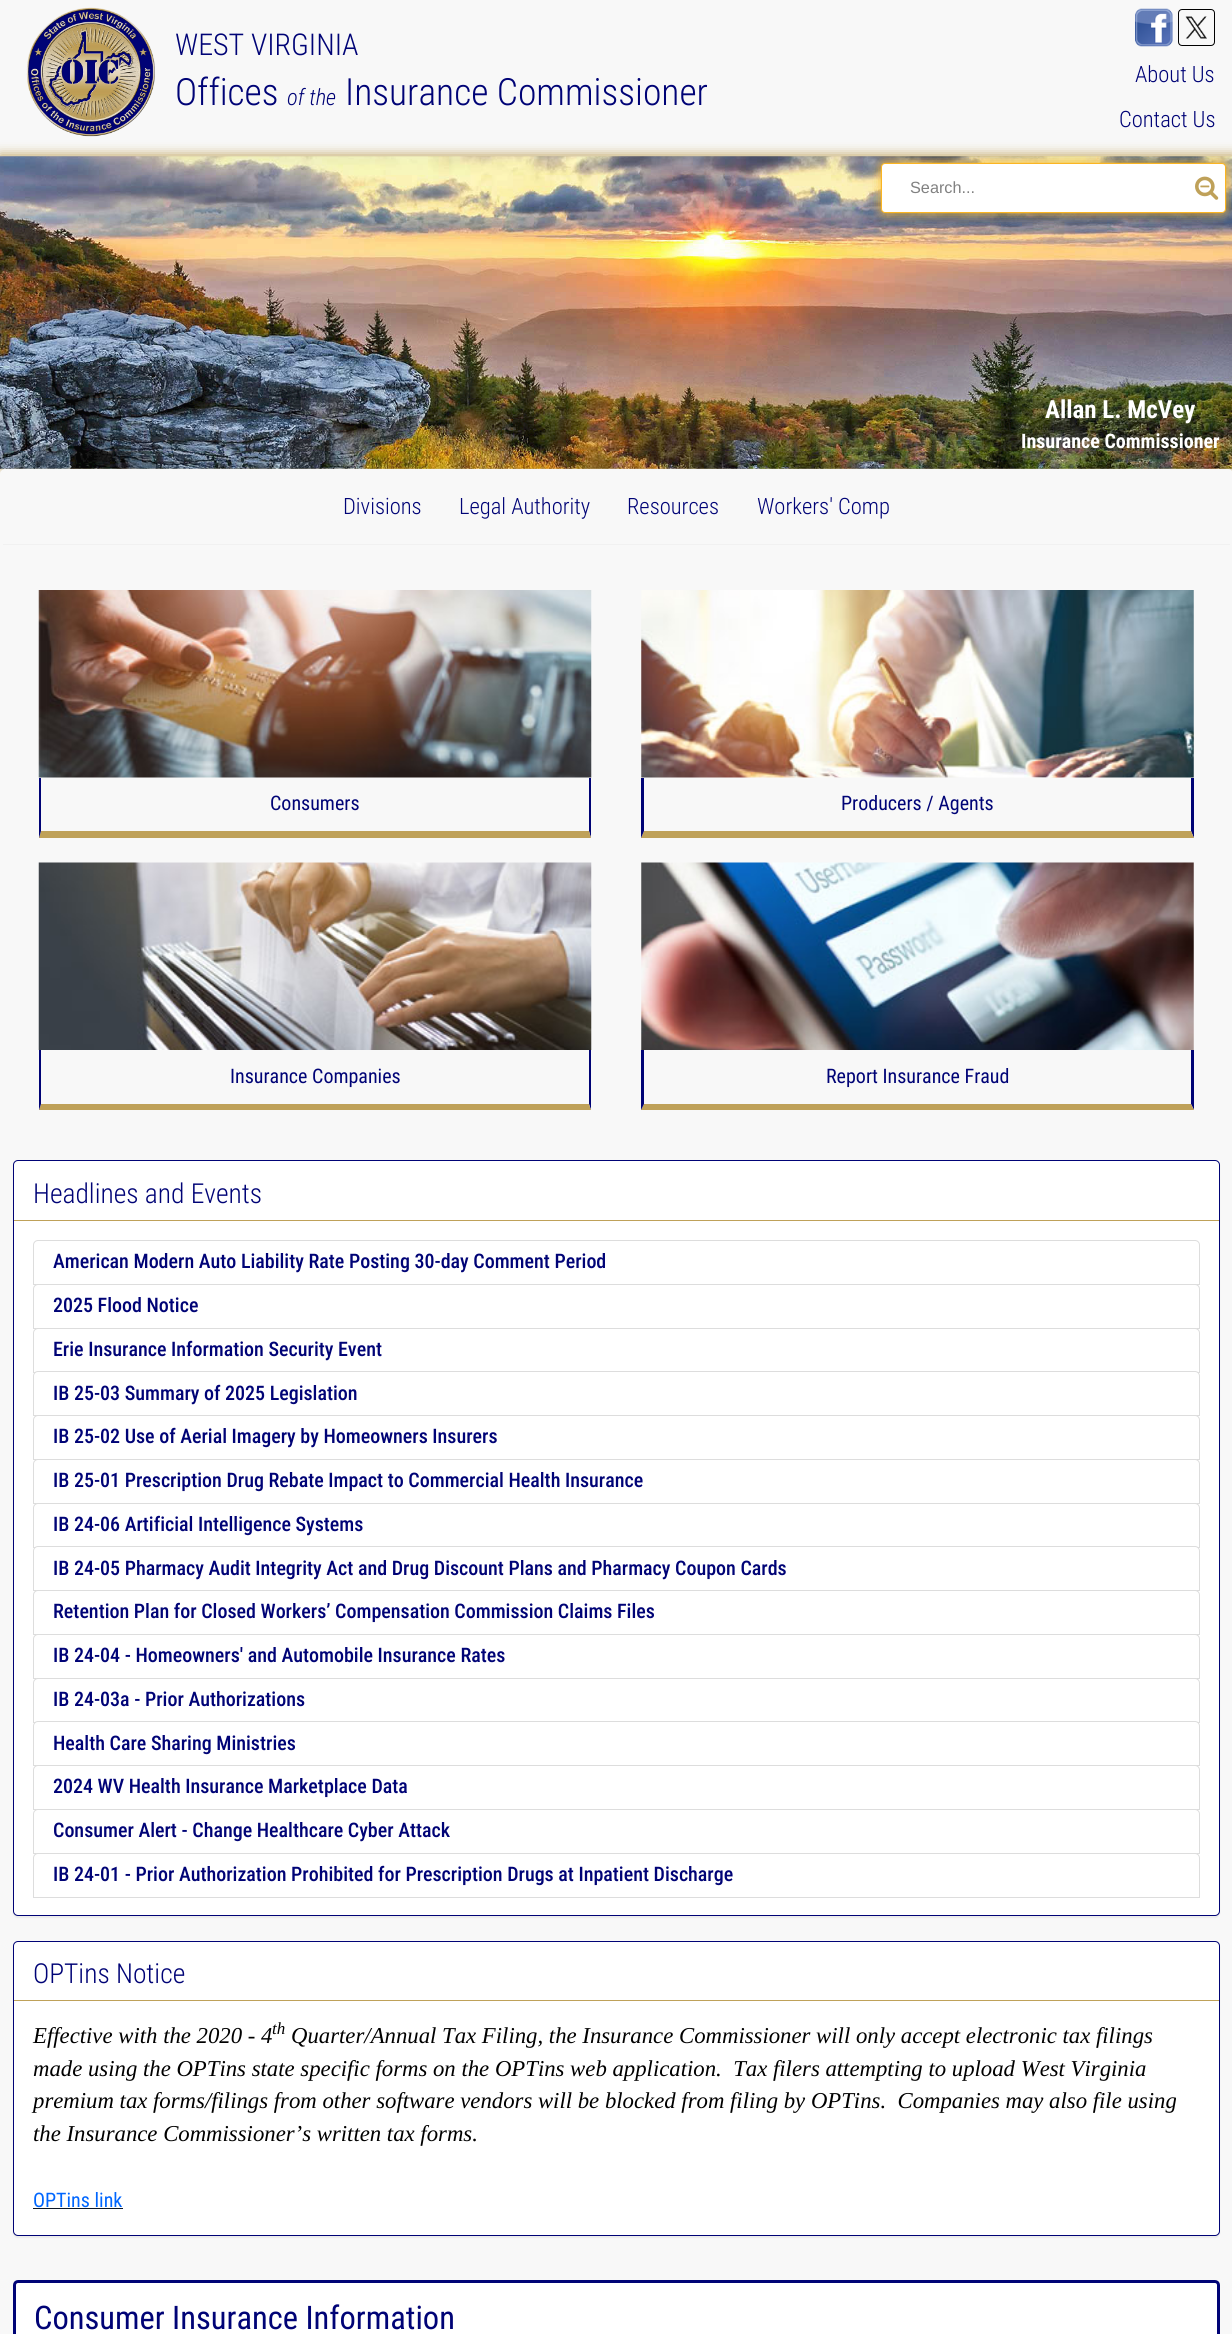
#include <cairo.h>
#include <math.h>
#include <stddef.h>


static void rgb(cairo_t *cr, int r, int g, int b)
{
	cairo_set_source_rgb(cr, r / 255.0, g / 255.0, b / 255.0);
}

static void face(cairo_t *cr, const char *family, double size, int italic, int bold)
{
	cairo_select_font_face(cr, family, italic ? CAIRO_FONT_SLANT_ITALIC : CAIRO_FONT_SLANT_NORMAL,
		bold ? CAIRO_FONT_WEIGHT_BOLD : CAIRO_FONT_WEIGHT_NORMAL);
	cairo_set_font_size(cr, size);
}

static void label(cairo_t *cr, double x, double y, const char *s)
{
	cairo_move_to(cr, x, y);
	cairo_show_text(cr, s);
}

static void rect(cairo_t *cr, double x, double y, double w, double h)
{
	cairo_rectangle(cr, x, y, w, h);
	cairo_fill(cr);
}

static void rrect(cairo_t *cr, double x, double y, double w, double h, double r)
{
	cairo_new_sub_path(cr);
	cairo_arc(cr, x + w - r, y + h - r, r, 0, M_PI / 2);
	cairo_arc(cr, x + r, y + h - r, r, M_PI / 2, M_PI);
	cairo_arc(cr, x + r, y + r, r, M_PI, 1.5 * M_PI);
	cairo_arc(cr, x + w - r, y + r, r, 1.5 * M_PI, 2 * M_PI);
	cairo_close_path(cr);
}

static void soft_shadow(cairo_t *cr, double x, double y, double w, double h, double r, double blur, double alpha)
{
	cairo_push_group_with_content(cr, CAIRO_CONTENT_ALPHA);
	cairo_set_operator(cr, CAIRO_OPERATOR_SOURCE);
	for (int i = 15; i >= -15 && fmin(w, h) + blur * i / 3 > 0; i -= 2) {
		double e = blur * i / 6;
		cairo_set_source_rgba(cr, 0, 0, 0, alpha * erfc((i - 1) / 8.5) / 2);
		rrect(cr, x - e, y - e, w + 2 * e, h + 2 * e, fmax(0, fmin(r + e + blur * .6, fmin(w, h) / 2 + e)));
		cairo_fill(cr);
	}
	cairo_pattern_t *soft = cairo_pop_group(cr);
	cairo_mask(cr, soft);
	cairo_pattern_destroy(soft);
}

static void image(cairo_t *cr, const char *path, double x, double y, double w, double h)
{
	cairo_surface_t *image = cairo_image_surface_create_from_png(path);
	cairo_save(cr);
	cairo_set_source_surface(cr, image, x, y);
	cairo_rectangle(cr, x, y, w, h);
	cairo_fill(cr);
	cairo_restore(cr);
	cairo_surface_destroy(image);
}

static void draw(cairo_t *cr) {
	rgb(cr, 248, 248, 248);
	cairo_paint(cr);
	image(cr, "image0.png", 26, 7, 129, 130);
	face(cr, "Roboto Condensed Light", 30, 0, 0);
	rgb(cr, 0, 3, 118);
	label(cr, 175, 55, "WEST VIRGINIA");
	face(cr, "Roboto Condensed Light", 37.5, 0, 0);
	label(cr, 175, 105, "Offices");
	face(cr, "Roboto Condensed Light", 22.5, 1, 0);
	label(cr, 287, 105, "of the");
	face(cr, "Roboto Condensed Light", 37.5, 0, 0);
	label(cr, 345, 105, "Insurance Commissioner");
	image(cr, "image1.png", 1135, 8, 38, 39);
	rrect(cr, 1178.5, 9.5, 36, 36, 3.5);
	rgb(cr, 0, 0, 0);
	cairo_set_line_width(cr, 1);
	cairo_stroke(cr);
	image(cr, "image2.png", 1185, 16, 22, 23);
	face(cr, "Roboto Condensed Light", 22.5, 0, 0);
	rgb(cr, 0, 3, 118);
	label(cr, 1135, 82, "About Us");
	label(cr, 1119, 127, "Contact Us");
	rgb(cr, 191, 161, 89);
	soft_shadow(cr, 0, 155, 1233, 313, 0, 6, 1);
	image(cr, "image3.png", 0, 156, 1232, 313);
	cairo_save(cr);
	cairo_rectangle(cr, 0, 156, 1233, 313);
	cairo_clip(cr);
	rgb(cr, 251, 181, 34);
	soft_shadow(cr, 881, 163, 345, 50, 4, 6, 1);
	cairo_restore(cr);
	rgb(cr, 255, 255, 255);
	rrect(cr, 881.5, 163.5, 344, 49, 3.5);
	cairo_fill_preserve(cr);
	rgb(cr, 251, 181, 34);
	cairo_stroke(cr);
	face(cr, "Liberation Sans", 16.25, 0, 0);
	rgb(cr, 129, 129, 129);
	label(cr, 910, 193, "Search...");
	image(cr, "image4.png", 1195, 176, 24, 24);
	face(cr, "Roboto Condensed", 25, 0, 1);
	rgb(cr, 255, 255, 255);
	label(cr, 1045, 418, "Allan L. McVey");
	face(cr, "Roboto Condensed", 20, 0, 1);
	label(cr, 1021, 448, "Insurance Commissioner");
	rgb(cr, 248, 248, 248);
	rrect(cr, 0, 469, 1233, 76, 5);
	cairo_fill(cr);
	rgb(cr, 241, 241, 241);
	rect(cr, 3, 544, 1227, 1);
	face(cr, "Roboto Condensed Light", 22.5, 0, 0);
	rgb(cr, 0, 3, 118);
	label(cr, 343, 514, "Divisions");
	label(cr, 459, 514, "Legal Authority");
	label(cr, 627, 514, "Resources");
	label(cr, 757, 514, "Workers' Comp");
	image(cr, "image5.png", 38, 590, 554, 188);
	cairo_new_path(cr);
	cairo_move_to(cr, 591, 778);
	cairo_line_to(cr, 591, 838);
	cairo_line_to(cr, 589, 831);
	cairo_line_to(cr, 589, 778);
	cairo_close_path(cr);
	cairo_fill(cr);
	rgb(cr, 191, 161, 89);
	cairo_new_path(cr);
	cairo_move_to(cr, 591, 838);
	cairo_line_to(cr, 39, 838);
	cairo_line_to(cr, 41, 831);
	cairo_line_to(cr, 589, 831);
	cairo_close_path(cr);
	cairo_fill(cr);
	rgb(cr, 0, 3, 118);
	cairo_new_path(cr);
	cairo_move_to(cr, 39, 838);
	cairo_line_to(cr, 39, 778);
	cairo_line_to(cr, 41, 778);
	cairo_line_to(cr, 41, 831);
	cairo_close_path(cr);
	cairo_fill(cr);
	face(cr, "Roboto Condensed", 20, 0, 0);
	label(cr, 270, 810, "Consumers");
	image(cr, "image6.png", 641, 590, 553, 188);
	cairo_new_path(cr);
	cairo_move_to(cr, 1194, 778);
	cairo_line_to(cr, 1194, 838);
	cairo_line_to(cr, 1191, 831);
	cairo_line_to(cr, 1191, 778);
	cairo_close_path(cr);
	cairo_fill(cr);
	rgb(cr, 191, 161, 89);
	cairo_new_path(cr);
	cairo_move_to(cr, 1194, 838);
	cairo_line_to(cr, 641, 838);
	cairo_line_to(cr, 644, 831);
	cairo_line_to(cr, 1191, 831);
	cairo_close_path(cr);
	cairo_fill(cr);
	rgb(cr, 0, 3, 118);
	cairo_new_path(cr);
	cairo_move_to(cr, 641, 838);
	cairo_line_to(cr, 641, 778);
	cairo_line_to(cr, 644, 778);
	cairo_line_to(cr, 644, 831);
	cairo_close_path(cr);
	cairo_fill(cr);
	label(cr, 841, 810, "Producers / Agents");
	image(cr, "image7.png", 38, 862, 554, 188);
	cairo_new_path(cr);
	cairo_move_to(cr, 591, 1050);
	cairo_line_to(cr, 591, 1110);
	cairo_line_to(cr, 589, 1104);
	cairo_line_to(cr, 589, 1050);
	cairo_close_path(cr);
	cairo_fill(cr);
	rgb(cr, 191, 161, 89);
	cairo_new_path(cr);
	cairo_move_to(cr, 591, 1110);
	cairo_line_to(cr, 39, 1110);
	cairo_line_to(cr, 41, 1104);
	cairo_line_to(cr, 589, 1104);
	cairo_close_path(cr);
	cairo_fill(cr);
	rgb(cr, 0, 3, 118);
	cairo_new_path(cr);
	cairo_move_to(cr, 39, 1110);
	cairo_line_to(cr, 39, 1050);
	cairo_line_to(cr, 41, 1050);
	cairo_line_to(cr, 41, 1104);
	cairo_close_path(cr);
	cairo_fill(cr);
	label(cr, 230, 1083, "Insurance Companies");
	image(cr, "image8.png", 641, 862, 553, 188);
	cairo_new_path(cr);
	cairo_move_to(cr, 1194, 1050);
	cairo_line_to(cr, 1194, 1110);
	cairo_line_to(cr, 1191, 1104);
	cairo_line_to(cr, 1191, 1050);
	cairo_close_path(cr);
	cairo_fill(cr);
	rgb(cr, 191, 161, 89);
	cairo_new_path(cr);
	cairo_move_to(cr, 1194, 1110);
	cairo_line_to(cr, 641, 1110);
	cairo_line_to(cr, 644, 1104);
	cairo_line_to(cr, 1191, 1104);
	cairo_close_path(cr);
	cairo_fill(cr);
	rgb(cr, 0, 3, 118);
	cairo_new_path(cr);
	cairo_move_to(cr, 641, 1110);
	cairo_line_to(cr, 641, 1050);
	cairo_line_to(cr, 644, 1050);
	cairo_line_to(cr, 644, 1104);
	cairo_close_path(cr);
	cairo_fill(cr);
	label(cr, 826, 1083, "Report Insurance Fraud");
	rgb(cr, 0, 0, 0);
	soft_shadow(cr, 13, 1161, 1207, 757, 5, 0.5, 0.05);
	rgb(cr, 255, 255, 255);
	rrect(cr, 13.5, 1160.5, 1206, 755, 4.5);
	cairo_fill_preserve(cr);
	rgb(cr, 0, 3, 118);
	cairo_stroke(cr);
	rgb(cr, 191, 161, 89);
	rect(cr, 14, 1220, 1205, 1);
	face(cr, "Roboto Condensed Light", 27.5, 0, 0);
	rgb(cr, 0, 3, 118);
	label(cr, 33, 1203, "Headlines and Events");
	cairo_new_path(cr);
	cairo_move_to(cr, 38, 1240.5);
	cairo_line_to(cr, 1195, 1240.5);
	cairo_curve_to(cr, 1197.5, 1240.5, 1199.5, 1242.5, 1199.5, 1245);
	cairo_line_to(cr, 1199.5, 1284.5);
	cairo_line_to(cr, 33.5, 1284.5);
	cairo_line_to(cr, 33.5, 1245);
	cairo_curve_to(cr, 33.5, 1242.5, 35.5, 1240.5, 38, 1240.5);
	cairo_close_path(cr);
	rgb(cr, 221, 221, 221);
	cairo_stroke(cr);
	face(cr, "Roboto Condensed Medium", 20, 0, 0);
	rgb(cr, 0, 3, 118);
	label(cr, 53, 1268, "American Modern Auto Liability Rate Posting 30-day Comment Period");
	rgb(cr, 255, 255, 255);
	cairo_new_path(cr);
	cairo_move_to(cr, 38, 1284.5);
	cairo_line_to(cr, 1195, 1284.5);
	cairo_curve_to(cr, 1197.5, 1284.5, 1199.5, 1286.5, 1199.5, 1289);
	cairo_line_to(cr, 1199.5, 1328.5);
	cairo_line_to(cr, 33.5, 1328.5);
	cairo_line_to(cr, 33.5, 1289);
	cairo_curve_to(cr, 33.5, 1286.5, 35.5, 1284.5, 38, 1284.5);
	cairo_close_path(cr);
	cairo_fill_preserve(cr);
	rgb(cr, 221, 221, 221);
	cairo_stroke(cr);
	rgb(cr, 0, 3, 118);
	label(cr, 53, 1312, "2025 Flood Notice");
	rgb(cr, 255, 255, 255);
	cairo_new_path(cr);
	cairo_move_to(cr, 38, 1328.5);
	cairo_line_to(cr, 1195, 1328.5);
	cairo_curve_to(cr, 1197.5, 1328.5, 1199.5, 1330.5, 1199.5, 1333);
	cairo_line_to(cr, 1199.5, 1372.5);
	cairo_line_to(cr, 33.5, 1372.5);
	cairo_line_to(cr, 33.5, 1333);
	cairo_curve_to(cr, 33.5, 1330.5, 35.5, 1328.5, 38, 1328.5);
	cairo_close_path(cr);
	cairo_fill_preserve(cr);
	rgb(cr, 221, 221, 221);
	cairo_stroke(cr);
	rgb(cr, 0, 3, 118);
	label(cr, 53, 1356, "Erie Insurance Information Security Event");
	rgb(cr, 255, 255, 255);
	cairo_new_path(cr);
	cairo_move_to(cr, 38, 1371.5);
	cairo_line_to(cr, 1195, 1371.5);
	cairo_curve_to(cr, 1197.5, 1371.5, 1199.5, 1373.5, 1199.5, 1376);
	cairo_line_to(cr, 1199.5, 1415.5);
	cairo_line_to(cr, 33.5, 1415.5);
	cairo_line_to(cr, 33.5, 1376);
	cairo_curve_to(cr, 33.5, 1373.5, 35.5, 1371.5, 38, 1371.5);
	cairo_close_path(cr);
	cairo_fill_preserve(cr);
	rgb(cr, 221, 221, 221);
	cairo_stroke(cr);
	rgb(cr, 0, 3, 118);
	label(cr, 53, 1400, "IB 25-03 Summary of 2025 Legislation");
	rgb(cr, 255, 255, 255);
	cairo_new_path(cr);
	cairo_move_to(cr, 38, 1415.5);
	cairo_line_to(cr, 1195, 1415.5);
	cairo_curve_to(cr, 1197.5, 1415.5, 1199.5, 1417.5, 1199.5, 1420);
	cairo_line_to(cr, 1199.5, 1459.5);
	cairo_line_to(cr, 33.5, 1459.5);
	cairo_line_to(cr, 33.5, 1420);
	cairo_curve_to(cr, 33.5, 1417.5, 35.5, 1415.5, 38, 1415.5);
	cairo_close_path(cr);
	cairo_fill_preserve(cr);
	rgb(cr, 221, 221, 221);
	cairo_stroke(cr);
	rgb(cr, 0, 3, 118);
	label(cr, 53, 1443, "IB 25-02 Use of Aerial Imagery by Homeowners Insurers");
	rgb(cr, 255, 255, 255);
	cairo_new_path(cr);
	cairo_move_to(cr, 38, 1459.5);
	cairo_line_to(cr, 1195, 1459.5);
	cairo_curve_to(cr, 1197.5, 1459.5, 1199.5, 1461.5, 1199.5, 1464);
	cairo_line_to(cr, 1199.5, 1503.5);
	cairo_line_to(cr, 33.5, 1503.5);
	cairo_line_to(cr, 33.5, 1464);
	cairo_curve_to(cr, 33.5, 1461.5, 35.5, 1459.5, 38, 1459.5);
	cairo_close_path(cr);
	cairo_fill_preserve(cr);
	rgb(cr, 221, 221, 221);
	cairo_stroke(cr);
	rgb(cr, 0, 3, 118);
	label(cr, 53, 1487, "IB 25-01 Prescription Drug Rebate Impact to Commercial Health Insurance");
	rgb(cr, 255, 255, 255);
	cairo_new_path(cr);
	cairo_move_to(cr, 38, 1503.5);
	cairo_line_to(cr, 1195, 1503.5);
	cairo_curve_to(cr, 1197.5, 1503.5, 1199.5, 1505.5, 1199.5, 1508);
	cairo_line_to(cr, 1199.5, 1547.5);
	cairo_line_to(cr, 33.5, 1547.5);
	cairo_line_to(cr, 33.5, 1508);
	cairo_curve_to(cr, 33.5, 1505.5, 35.5, 1503.5, 38, 1503.5);
	cairo_close_path(cr);
	cairo_fill_preserve(cr);
	rgb(cr, 221, 221, 221);
	cairo_stroke(cr);
	rgb(cr, 0, 3, 118);
	label(cr, 53, 1531, "IB 24-06 Artificial Intelligence Systems");
	rgb(cr, 255, 255, 255);
	cairo_new_path(cr);
	cairo_move_to(cr, 38, 1546.5);
	cairo_line_to(cr, 1195, 1546.5);
	cairo_curve_to(cr, 1197.5, 1546.5, 1199.5, 1548.5, 1199.5, 1551);
	cairo_line_to(cr, 1199.5, 1590.5);
	cairo_line_to(cr, 33.5, 1590.5);
	cairo_line_to(cr, 33.5, 1551);
	cairo_curve_to(cr, 33.5, 1548.5, 35.5, 1546.5, 38, 1546.5);
	cairo_close_path(cr);
	cairo_fill_preserve(cr);
	rgb(cr, 221, 221, 221);
	cairo_stroke(cr);
	rgb(cr, 0, 3, 118);
	label(cr, 53, 1575, "IB 24-05 Pharmacy Audit Integrity Act and Drug Discount Plans and Pharmacy Coupon Cards");
	rgb(cr, 255, 255, 255);
	cairo_new_path(cr);
	cairo_move_to(cr, 38, 1590.5);
	cairo_line_to(cr, 1195, 1590.5);
	cairo_curve_to(cr, 1197.5, 1590.5, 1199.5, 1592.5, 1199.5, 1595);
	cairo_line_to(cr, 1199.5, 1634.5);
	cairo_line_to(cr, 33.5, 1634.5);
	cairo_line_to(cr, 33.5, 1595);
	cairo_curve_to(cr, 33.5, 1592.5, 35.5, 1590.5, 38, 1590.5);
	cairo_close_path(cr);
	cairo_fill_preserve(cr);
	rgb(cr, 221, 221, 221);
	cairo_stroke(cr);
	rgb(cr, 0, 3, 118);
	label(cr, 53, 1618, "Retention Plan for Closed Workers’ Compensation Commission Claims Files");
	rgb(cr, 255, 255, 255);
	cairo_new_path(cr);
	cairo_move_to(cr, 38, 1634.5);
	cairo_line_to(cr, 1195, 1634.5);
	cairo_curve_to(cr, 1197.5, 1634.5, 1199.5, 1636.5, 1199.5, 1639);
	cairo_line_to(cr, 1199.5, 1678.5);
	cairo_line_to(cr, 33.5, 1678.5);
	cairo_line_to(cr, 33.5, 1639);
	cairo_curve_to(cr, 33.5, 1636.5, 35.5, 1634.5, 38, 1634.5);
	cairo_close_path(cr);
	cairo_fill_preserve(cr);
	rgb(cr, 221, 221, 221);
	cairo_stroke(cr);
	rgb(cr, 0, 3, 118);
	label(cr, 53, 1662, "IB 24-04 - Homeowners' and Automobile Insurance Rates");
	rgb(cr, 255, 255, 255);
	cairo_new_path(cr);
	cairo_move_to(cr, 38, 1678.5);
	cairo_line_to(cr, 1195, 1678.5);
	cairo_curve_to(cr, 1197.5, 1678.5, 1199.5, 1680.5, 1199.5, 1683);
	cairo_line_to(cr, 1199.5, 1722.5);
	cairo_line_to(cr, 33.5, 1722.5);
	cairo_line_to(cr, 33.5, 1683);
	cairo_curve_to(cr, 33.5, 1680.5, 35.5, 1678.5, 38, 1678.5);
	cairo_close_path(cr);
	cairo_fill_preserve(cr);
	rgb(cr, 221, 221, 221);
	cairo_stroke(cr);
	rgb(cr, 0, 3, 118);
	label(cr, 53, 1706, "IB 24-03a - Prior Authorizations");
	rgb(cr, 255, 255, 255);
	cairo_new_path(cr);
	cairo_move_to(cr, 38, 1721.5);
	cairo_line_to(cr, 1195, 1721.5);
	cairo_curve_to(cr, 1197.5, 1721.5, 1199.5, 1723.5, 1199.5, 1726);
	cairo_line_to(cr, 1199.5, 1765.5);
	cairo_line_to(cr, 33.5, 1765.5);
	cairo_line_to(cr, 33.5, 1726);
	cairo_curve_to(cr, 33.5, 1723.5, 35.5, 1721.5, 38, 1721.5);
	cairo_close_path(cr);
	cairo_fill_preserve(cr);
	rgb(cr, 221, 221, 221);
	cairo_stroke(cr);
	rgb(cr, 0, 3, 118);
	label(cr, 53, 1750, "Health Care Sharing Ministries");
	rgb(cr, 255, 255, 255);
	cairo_new_path(cr);
	cairo_move_to(cr, 38, 1765.5);
	cairo_line_to(cr, 1195, 1765.5);
	cairo_curve_to(cr, 1197.5, 1765.5, 1199.5, 1767.5, 1199.5, 1770);
	cairo_line_to(cr, 1199.5, 1809.5);
	cairo_line_to(cr, 33.5, 1809.5);
	cairo_line_to(cr, 33.5, 1770);
	cairo_curve_to(cr, 33.5, 1767.5, 35.5, 1765.5, 38, 1765.5);
	cairo_close_path(cr);
	cairo_fill_preserve(cr);
	rgb(cr, 221, 221, 221);
	cairo_stroke(cr);
	rgb(cr, 0, 3, 118);
	label(cr, 53, 1793, "2024 WV Health Insurance Marketplace Data");
	rgb(cr, 255, 255, 255);
	cairo_new_path(cr);
	cairo_move_to(cr, 38, 1809.5);
	cairo_line_to(cr, 1195, 1809.5);
	cairo_curve_to(cr, 1197.5, 1809.5, 1199.5, 1811.5, 1199.5, 1814);
	cairo_line_to(cr, 1199.5, 1853.5);
	cairo_line_to(cr, 33.5, 1853.5);
	cairo_line_to(cr, 33.5, 1814);
	cairo_curve_to(cr, 33.5, 1811.5, 35.5, 1809.5, 38, 1809.5);
	cairo_close_path(cr);
	cairo_fill_preserve(cr);
	rgb(cr, 221, 221, 221);
	cairo_stroke(cr);
	rgb(cr, 0, 3, 118);
	label(cr, 53, 1837, "Consumer Alert - Change Healthcare Cyber Attack");
	rgb(cr, 255, 255, 255);
	cairo_new_path(cr);
	cairo_move_to(cr, 38, 1853.5);
	cairo_line_to(cr, 1195, 1853.5);
	cairo_curve_to(cr, 1197.5, 1853.5, 1199.5, 1855.5, 1199.5, 1858);
	cairo_line_to(cr, 1199.5, 1897.5);
	cairo_line_to(cr, 33.5, 1897.5);
	cairo_line_to(cr, 33.5, 1858);
	cairo_curve_to(cr, 33.5, 1855.5, 35.5, 1853.5, 38, 1853.5);
	cairo_close_path(cr);
	cairo_fill_preserve(cr);
	rgb(cr, 221, 221, 221);
	cairo_stroke(cr);
	rgb(cr, 0, 3, 118);
	label(cr, 53, 1881, "IB 24-01 - Prior Authorization Prohibited for Prescription Drugs at Inpatient Discharge");
	rgb(cr, 0, 0, 0);
	soft_shadow(cr, 13, 1943, 1207, 295, 5, 0.5, 0.05);
	rgb(cr, 255, 255, 255);
	rrect(cr, 13.5, 1941.5, 1206, 294, 4.5);
	cairo_fill_preserve(cr);
	rgb(cr, 0, 3, 118);
	cairo_stroke(cr);
	rgb(cr, 191, 161, 89);
	rect(cr, 14, 2000, 1205, 1);
	face(cr, "Roboto Condensed Light", 27.5, 0, 0);
	rgb(cr, 0, 3, 118);
	label(cr, 33, 1983, "OPTins Notice");
	face(cr, "Liberation Serif", 22.75, 1, 0);
	rgb(cr, 0, 0, 0);
	label(cr, 33, 2043, "Effective with the 2020 - 4");
	face(cr, "Liberation Serif", 17, 1, 0);
	label(cr, 272, 2034, "th");
	face(cr, "Liberation Serif", 22.75, 1, 0);
	label(cr, 291, 2043, "Quarter/Annual Tax Filing, the Insurance Commissioner will only accept electronic tax filings");
	label(cr, 33, 2076, "made using the OPTins state specific forms on the OPTins web application.  Tax filers attempting to upload West Virginia");
	label(cr, 33, 2108, "premium tax forms/filings from other software vendors will be blocked from filing by OPTins.  Companies may also file using");
	label(cr, 33, 2141, "the Insurance Commissioner’s written tax forms.");
	face(cr, "Roboto Condensed", 20, 0, 0);
	rgb(cr, 0, 102, 255);
	label(cr, 33, 2207, "OPTins link");
	rgb(cr, 12, 23, 39);
	rect(cr, 33, 2208, 90, 1);
	rgb(cr, 255, 255, 255);
	rrect(cr, 14.5, 2281.5, 1204, 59, 3.5);
	cairo_fill_preserve(cr);
	rgb(cr, 0, 3, 118);
	cairo_set_line_width(cr, 3);
	cairo_stroke(cr);
	face(cr, "Roboto Condensed", 32.5, 0, 0);
	label(cr, 34, 2329, "Consumer Insurance Information");
}

int main(void) {
	cairo_surface_t *surface = cairo_image_surface_create(CAIRO_FORMAT_RGB24, 1232, 2334);
	cairo_t *cr = cairo_create(surface);
	cairo_font_options_t *options = cairo_font_options_create();
	cairo_font_options_set_hint_metrics(options, CAIRO_HINT_METRICS_OFF);
	cairo_font_options_set_hint_style(options, CAIRO_HINT_STYLE_NONE);
	cairo_set_font_options(cr, options);
	cairo_set_miter_limit(cr, 4);
	draw(cr);
	cairo_surface_write_to_png(surface, "render.png");
	cairo_font_options_destroy(options);
	cairo_destroy(cr);
	cairo_surface_destroy(surface);
	return 0;
}
